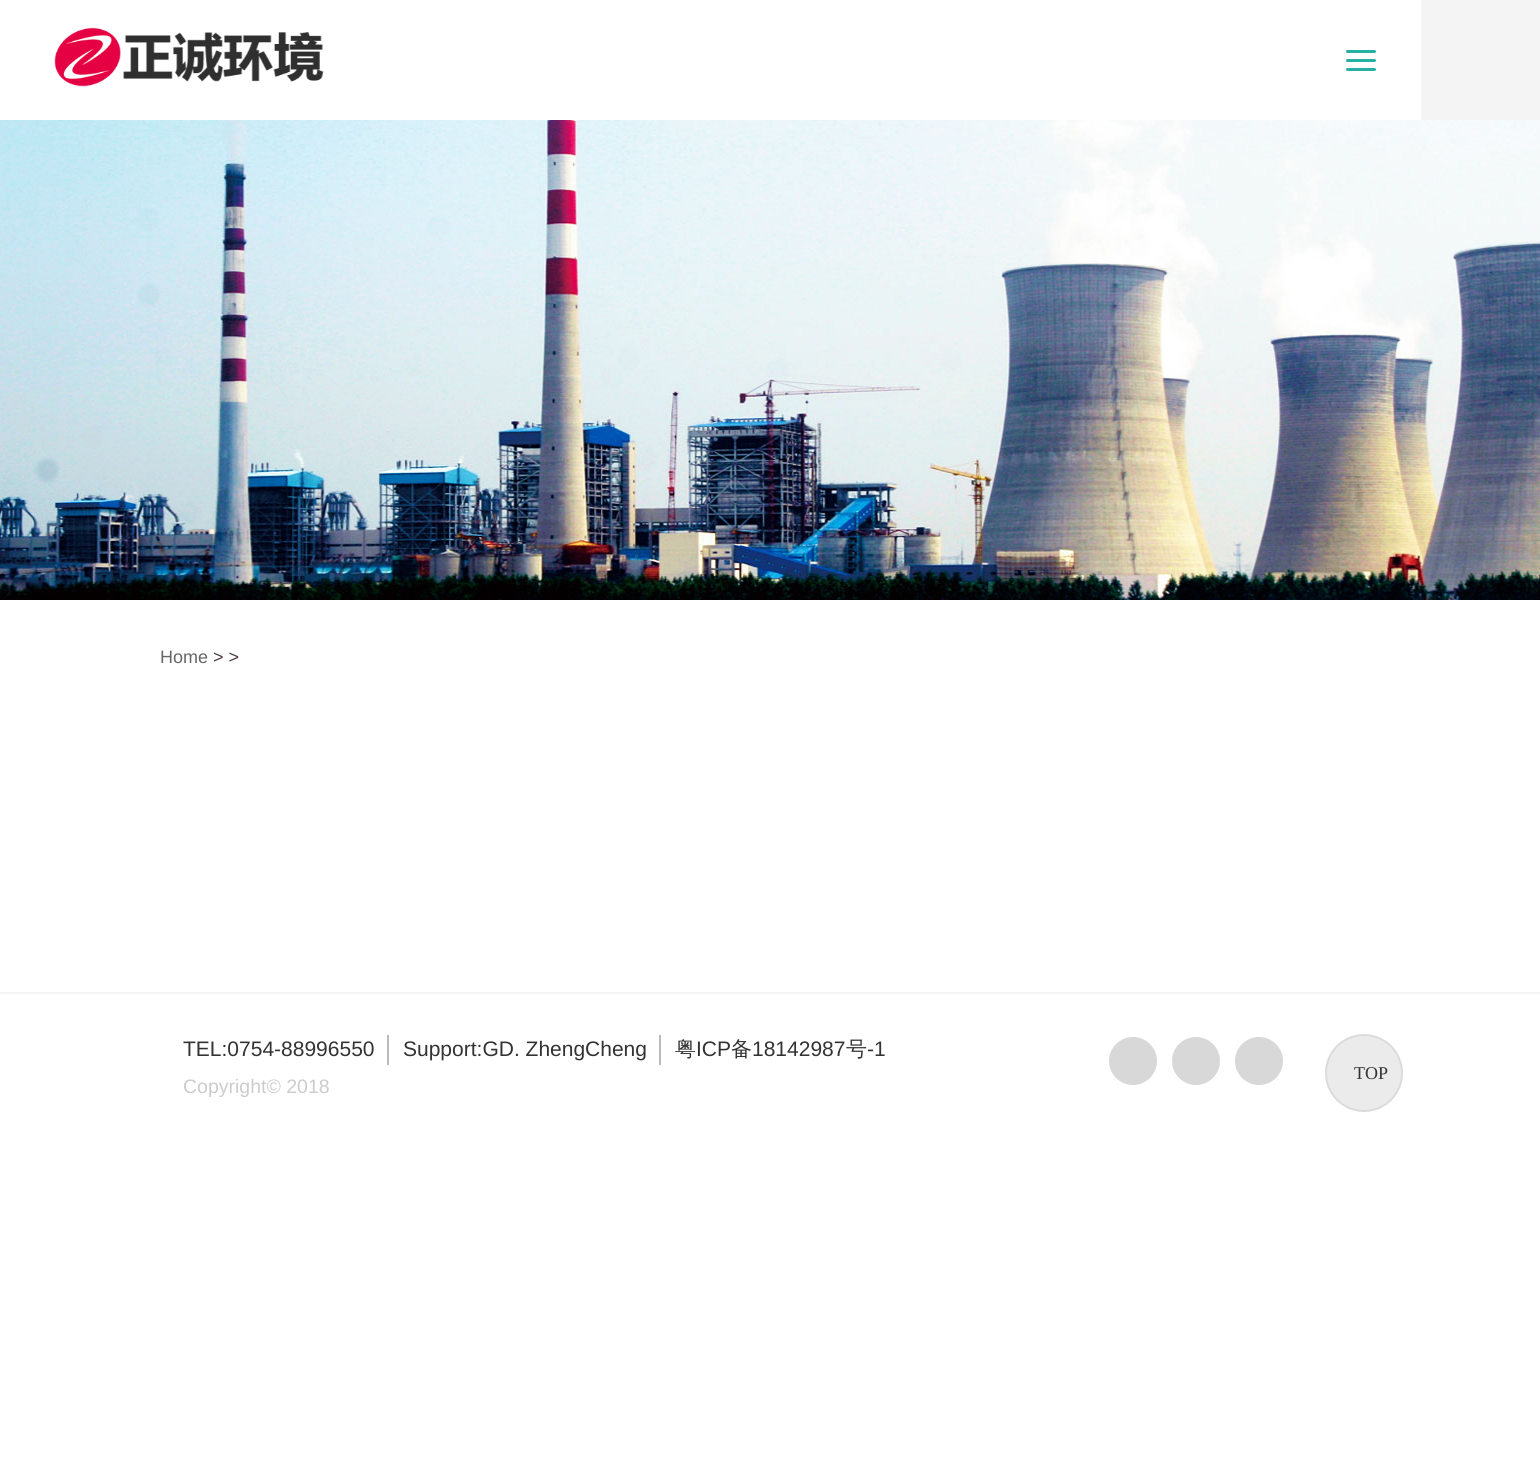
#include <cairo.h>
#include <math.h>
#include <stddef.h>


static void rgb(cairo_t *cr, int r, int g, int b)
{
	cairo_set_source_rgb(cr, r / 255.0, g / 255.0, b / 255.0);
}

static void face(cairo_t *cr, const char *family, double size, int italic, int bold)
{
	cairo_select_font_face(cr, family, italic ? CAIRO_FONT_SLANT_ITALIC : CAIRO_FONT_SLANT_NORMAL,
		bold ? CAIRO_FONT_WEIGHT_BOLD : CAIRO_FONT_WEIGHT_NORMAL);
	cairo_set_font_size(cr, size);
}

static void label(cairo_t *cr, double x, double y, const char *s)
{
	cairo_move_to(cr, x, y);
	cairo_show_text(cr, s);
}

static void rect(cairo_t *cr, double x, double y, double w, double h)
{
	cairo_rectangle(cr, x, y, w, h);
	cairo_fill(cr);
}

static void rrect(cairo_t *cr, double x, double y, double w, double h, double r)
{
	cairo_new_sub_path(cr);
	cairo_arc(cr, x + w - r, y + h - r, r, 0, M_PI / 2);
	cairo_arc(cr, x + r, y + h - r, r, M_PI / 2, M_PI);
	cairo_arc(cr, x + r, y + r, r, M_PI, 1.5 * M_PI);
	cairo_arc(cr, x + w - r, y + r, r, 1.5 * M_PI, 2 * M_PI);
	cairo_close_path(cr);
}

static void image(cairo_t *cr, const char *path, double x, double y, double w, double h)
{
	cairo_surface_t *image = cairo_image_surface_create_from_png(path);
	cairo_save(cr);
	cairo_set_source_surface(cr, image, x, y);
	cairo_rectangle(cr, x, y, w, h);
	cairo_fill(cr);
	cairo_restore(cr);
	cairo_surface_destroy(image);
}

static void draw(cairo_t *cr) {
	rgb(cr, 255, 255, 255);
	cairo_paint(cr);
	image(cr, "image0.png", 54, 27, 270, 60);
	rgb(cr, 244, 244, 244);
	rect(cr, 1421, 0, 119, 120);
	rgb(cr, 38, 176, 164);
	rrect(cr, 1346, 59, 30, 3, 1.5);
	cairo_fill(cr);
	rrect(cr, 1346, 50, 30, 3, 1.5);
	cairo_fill(cr);
	rrect(cr, 1346, 68, 30, 3, 1.5);
	cairo_fill(cr);
	image(cr, "image1.png", 0, 120, 1540, 480);
	face(cr, "Liberation Sans", 18, 0, 0);
	rgb(cr, 102, 102, 102);
	label(cr, 160, 663, "Home");
	rgb(cr, 78, 62, 62);
	label(cr, 213, 663, "> >");
	rgb(cr, 216, 216, 216);
	cairo_new_path(cr);
	cairo_arc(cr, 1133, 1061, 24, 0, 2 * M_PI);
	cairo_fill(cr);
	cairo_arc(cr, 1196, 1061, 24, 0, 2 * M_PI);
	cairo_fill(cr);
	cairo_arc(cr, 1259, 1061, 24, 0, 2 * M_PI);
	cairo_fill(cr);
	rgb(cr, 245, 245, 245);
	rect(cr, 0, 992, 1540, 2);
	face(cr, "Liberation Sans", 21, 0, 0);
	rgb(cr, 51, 51, 51);
	label(cr, 183, 1056, "TEL:0754-88996550");
	rgb(cr, 187, 187, 187);
	rect(cr, 387, 1035, 2, 30);
	rgb(cr, 51, 51, 51);
	label(cr, 403, 1056, "Support:GD. ZhengCheng");
	rgb(cr, 187, 187, 187);
	rect(cr, 659, 1035, 2, 30);
	face(cr, "WenQuanYi Zen Hei Medium", 21, 0, 0);
	rgb(cr, 51, 51, 51);
	label(cr, 675, 1056, "粤");
	face(cr, "Liberation Sans", 21, 0, 0);
	label(cr, 696, 1056, "ICP");
	face(cr, "WenQuanYi Zen Hei Medium", 21, 0, 0);
	label(cr, 731, 1056, "备");
	face(cr, "Liberation Sans", 21, 0, 0);
	label(cr, 752, 1056, "18142987");
	face(cr, "WenQuanYi Zen Hei Medium", 21, 0, 0);
	label(cr, 846, 1056, "号");
	face(cr, "Liberation Sans", 21, 0, 0);
	label(cr, 867, 1056, "-1");
	rgb(cr, 235, 235, 235);
	cairo_new_path(cr);
	cairo_arc(cr, 1364, 1073, 38, 0, 2 * M_PI);
	cairo_fill_preserve(cr);
	rgb(cr, 219, 219, 219);
	cairo_stroke(cr);
	face(cr, "Liberation Serif", 18, 0, 0);
	rgb(cr, 51, 51, 51);
	label(cr, 1354, 1079, "TOP");
	face(cr, "Liberation Sans", 19.5, 0, 0);
	rgb(cr, 204, 204, 204);
	label(cr, 183, 1093, "Copyright© 2018");
}

int main(void) {
	cairo_surface_t *surface = cairo_image_surface_create(CAIRO_FORMAT_RGB24, 1540, 1481);
	cairo_t *cr = cairo_create(surface);
	cairo_font_options_t *options = cairo_font_options_create();
	cairo_font_options_set_hint_metrics(options, CAIRO_HINT_METRICS_OFF);
	cairo_font_options_set_hint_style(options, CAIRO_HINT_STYLE_NONE);
	cairo_set_font_options(cr, options);
	cairo_set_miter_limit(cr, 4);
	draw(cr);
	cairo_surface_write_to_png(surface, "render.png");
	cairo_font_options_destroy(options);
	cairo_destroy(cr);
	cairo_surface_destroy(surface);
	return 0;
}
